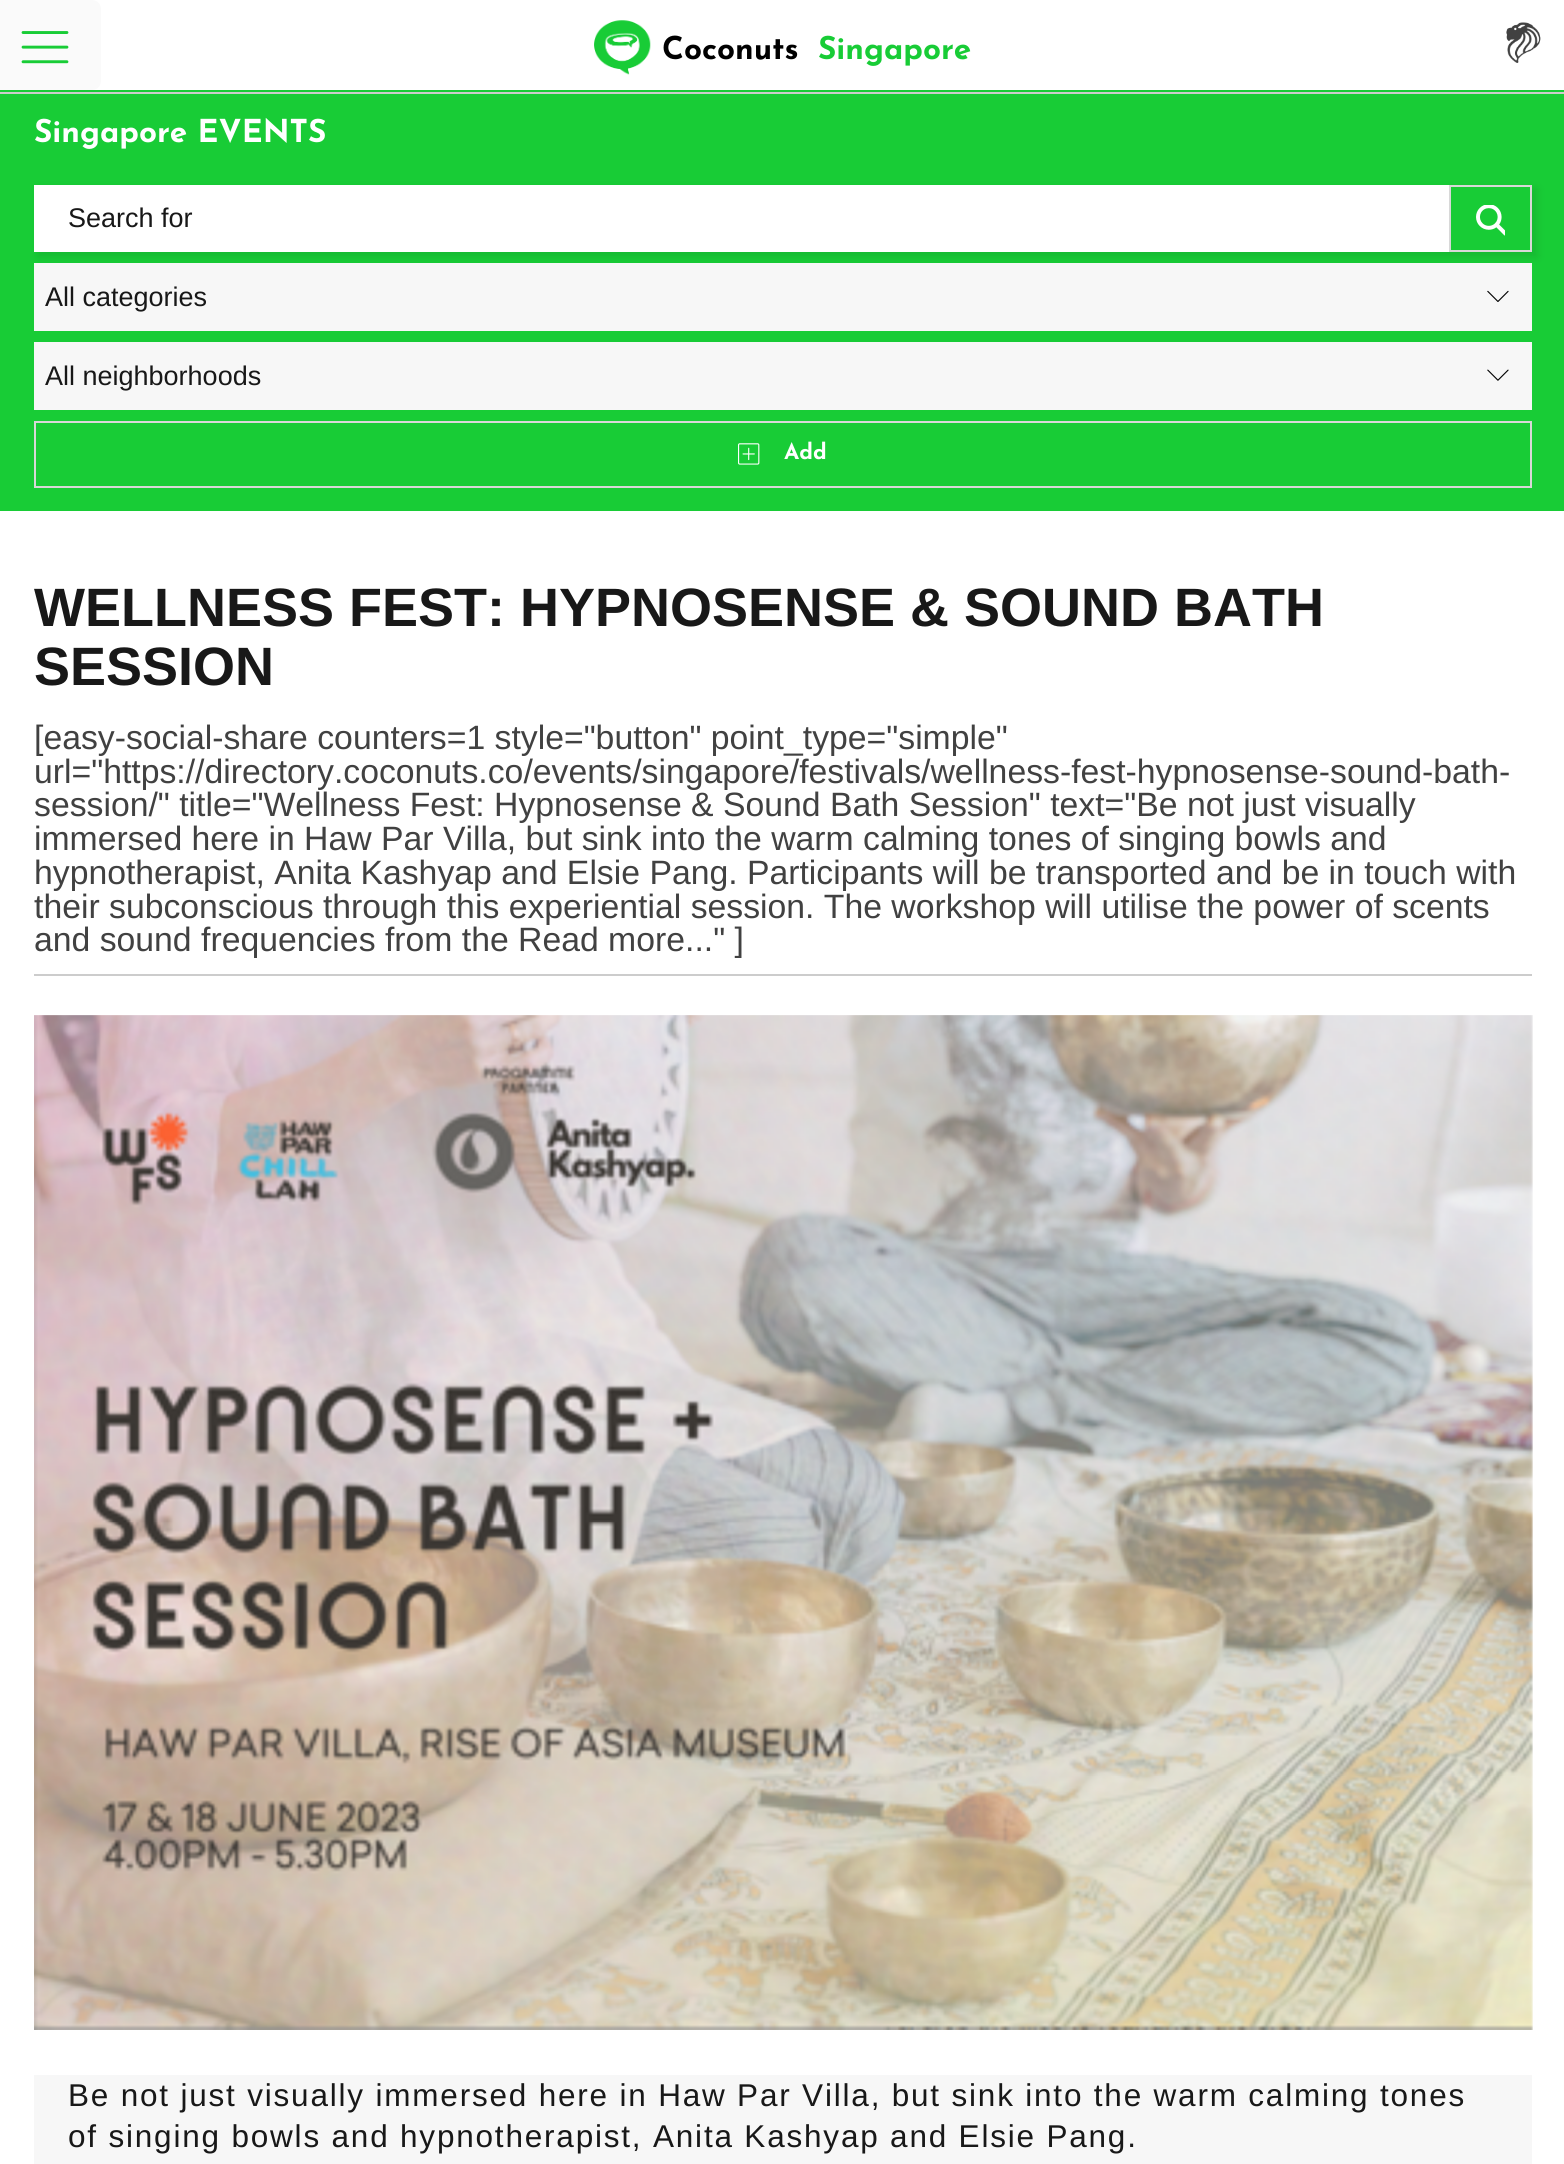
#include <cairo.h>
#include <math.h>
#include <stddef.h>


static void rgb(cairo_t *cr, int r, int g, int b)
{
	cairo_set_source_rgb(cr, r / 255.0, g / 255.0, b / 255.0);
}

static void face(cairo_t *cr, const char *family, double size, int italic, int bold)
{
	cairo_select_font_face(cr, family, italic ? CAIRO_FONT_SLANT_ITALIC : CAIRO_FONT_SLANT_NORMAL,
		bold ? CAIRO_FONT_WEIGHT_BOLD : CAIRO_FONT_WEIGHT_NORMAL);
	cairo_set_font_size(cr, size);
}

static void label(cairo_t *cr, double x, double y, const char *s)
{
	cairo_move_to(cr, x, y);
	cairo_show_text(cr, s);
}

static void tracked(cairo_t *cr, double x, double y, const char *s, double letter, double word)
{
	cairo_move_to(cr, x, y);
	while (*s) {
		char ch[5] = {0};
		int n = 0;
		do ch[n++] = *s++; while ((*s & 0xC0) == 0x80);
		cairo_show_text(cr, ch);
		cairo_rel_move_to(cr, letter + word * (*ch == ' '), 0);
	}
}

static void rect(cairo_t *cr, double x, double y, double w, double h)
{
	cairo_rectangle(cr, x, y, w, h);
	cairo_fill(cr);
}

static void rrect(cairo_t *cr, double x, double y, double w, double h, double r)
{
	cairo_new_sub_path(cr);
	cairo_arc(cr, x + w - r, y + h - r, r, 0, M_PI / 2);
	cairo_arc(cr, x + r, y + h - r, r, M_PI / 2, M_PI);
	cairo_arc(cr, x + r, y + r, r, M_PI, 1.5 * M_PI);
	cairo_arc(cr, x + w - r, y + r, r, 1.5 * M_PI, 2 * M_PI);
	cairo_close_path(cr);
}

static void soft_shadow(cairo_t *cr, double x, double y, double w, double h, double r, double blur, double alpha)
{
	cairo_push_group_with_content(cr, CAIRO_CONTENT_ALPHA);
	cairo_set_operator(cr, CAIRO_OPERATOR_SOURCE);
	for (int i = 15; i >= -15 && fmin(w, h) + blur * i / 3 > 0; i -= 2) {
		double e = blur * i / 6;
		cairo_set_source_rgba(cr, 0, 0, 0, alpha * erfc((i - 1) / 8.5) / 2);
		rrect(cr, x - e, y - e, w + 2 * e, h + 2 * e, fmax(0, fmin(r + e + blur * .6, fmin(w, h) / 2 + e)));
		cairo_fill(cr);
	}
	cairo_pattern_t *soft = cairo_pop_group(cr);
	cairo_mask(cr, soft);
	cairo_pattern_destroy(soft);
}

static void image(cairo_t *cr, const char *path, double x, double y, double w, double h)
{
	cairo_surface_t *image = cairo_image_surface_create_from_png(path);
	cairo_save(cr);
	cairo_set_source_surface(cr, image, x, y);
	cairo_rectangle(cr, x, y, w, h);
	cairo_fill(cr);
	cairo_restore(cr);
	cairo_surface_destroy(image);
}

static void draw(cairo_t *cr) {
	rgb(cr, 255, 255, 255);
	cairo_paint(cr);
	rgb(cr, 24, 204, 54);
	rect(cr, 0, 90, 1564, 421);
	rgb(cr, 204, 204, 204);
	rect(cr, 0, 92, 1564, 2);
	rgb(cr, 250, 250, 250);
	rrect(cr, -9, 0, 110, 90, 9);
	cairo_fill(cr);
	image(cr, "image0.png", 21, 31, 48, 33);
	image(cr, "image1.png", 594, 20, 57, 55);
	face(cr, "Josefin Sans Thin", 31.5, 0, 0);
	rgb(cr, 0, 0, 0);
	label(cr, 662, 59, "Coconuts");
	rgb(cr, 24, 204, 54);
	label(cr, 818, 59, "Singapore");
	image(cr, "image2.png", 1506, 22, 35, 41);
	rgb(cr, 255, 255, 255);
	label(cr, 34, 142, "Singapore EVENTS");
	rgb(cr, 0, 0, 0);
	soft_shadow(cr, 38, 189, 1499, 68, 0, 4.5, 0.1);
	rgb(cr, 255, 255, 255);
	rect(cr, 34, 185, 1415, 67);
	face(cr, "Liberation Sans", 27, 0, 0);
	rgb(cr, 24, 24, 24);
	label(cr, 68, 227, "Search for");
	rgb(cr, 24, 204, 54);
	cairo_rectangle(cr, 1450, 186, 81, 65);
	cairo_fill_preserve(cr);
	rgb(cr, 216, 216, 216);
	cairo_stroke(cr);
	image(cr, "image3.png", 1476, 205, 29, 31);
	rgb(cr, 247, 247, 247);
	rect(cr, 34, 263, 1498, 68);
	rgb(cr, 24, 24, 24);
	label(cr, 45, 306, "All categories");
	image(cr, "image4.png", 1487, 290, 22, 12);
	rgb(cr, 247, 247, 247);
	rect(cr, 34, 342, 1498, 68);
	rgb(cr, 24, 24, 24);
	label(cr, 45, 385, "All neighborhoods");
	image(cr, "image5.png", 1487, 369, 22, 12);
	cairo_rectangle(cr, 35, 422, 1496, 65);
	rgb(cr, 216, 216, 216);
	cairo_stroke(cr);
	image(cr, "image6.png", 738, 443, 22, 22);
	face(cr, "Josefin Sans Thin", 22, 0, 0);
	rgb(cr, 255, 255, 255);
	label(cr, 784, 459, "Add");
	rgb(cr, 204, 204, 204);
	rect(cr, 34, 974, 1498, 2);
	face(cr, "Liberation Sans", 54, 0, 1);
	rgb(cr, 24, 24, 24);
	label(cr, 34, 626, "WELLNESS FEST: HYPNOSENSE & SOUND BATH");
	label(cr, 34, 685, "SESSION");
	face(cr, "Liberation Sans", 33.75, 0, 0);
	rgb(cr, 65, 65, 65);
	label(cr, 34, 749, "[easy-social-share counters=1 style=\"button\" point_type=\"simple\"");
	label(cr, 34, 783, "url=\"https://directory.coconuts.co/events/singapore/festivals/wellness-fest-hypnosense-sound-bath-");
	label(cr, 34, 816, "session/\" title=\"Wellness Fest: Hypnosense & Sound Bath Session\" text=\"Be not just visually");
	label(cr, 34, 850, "immersed here in Haw Par Villa, but sink into the warm calming tones of singing bowls and");
	label(cr, 34, 884, "hypnotherapist, Anita Kashyap and Elsie Pang. Participants will be transported and be in touch with");
	label(cr, 34, 918, "their subconscious through this experiential session. The workshop will utilise the power of scents");
	label(cr, 34, 951, "and sound frequencies from the Read more...\" ]");
	image(cr, "image7.png", 34, 1015, 1499, 1015);
	rgb(cr, 247, 247, 247);
	rect(cr, 34, 2075, 1498, 89);
	face(cr, "Liberation Sans", 31.5, 0, 0);
	rgb(cr, 24, 24, 24);
	tracked(cr, 68, 2106, "Be not just visually immersed here in Haw Par Villa, but sink into the warm calming tones", 1.8, 0);
	tracked(cr, 68, 2147, "of singing bowls and hypnotherapist, Anita Kashyap and Elsie Pang.", 1.8, 0);
}

int main(void) {
	cairo_surface_t *surface = cairo_image_surface_create(CAIRO_FORMAT_RGB24, 1564, 2164);
	cairo_t *cr = cairo_create(surface);
	cairo_font_options_t *options = cairo_font_options_create();
	cairo_font_options_set_hint_metrics(options, CAIRO_HINT_METRICS_OFF);
	cairo_font_options_set_hint_style(options, CAIRO_HINT_STYLE_NONE);
	cairo_set_font_options(cr, options);
	cairo_set_miter_limit(cr, 4);
	draw(cr);
	cairo_surface_write_to_png(surface, "render.png");
	cairo_font_options_destroy(options);
	cairo_destroy(cr);
	cairo_surface_destroy(surface);
	return 0;
}
